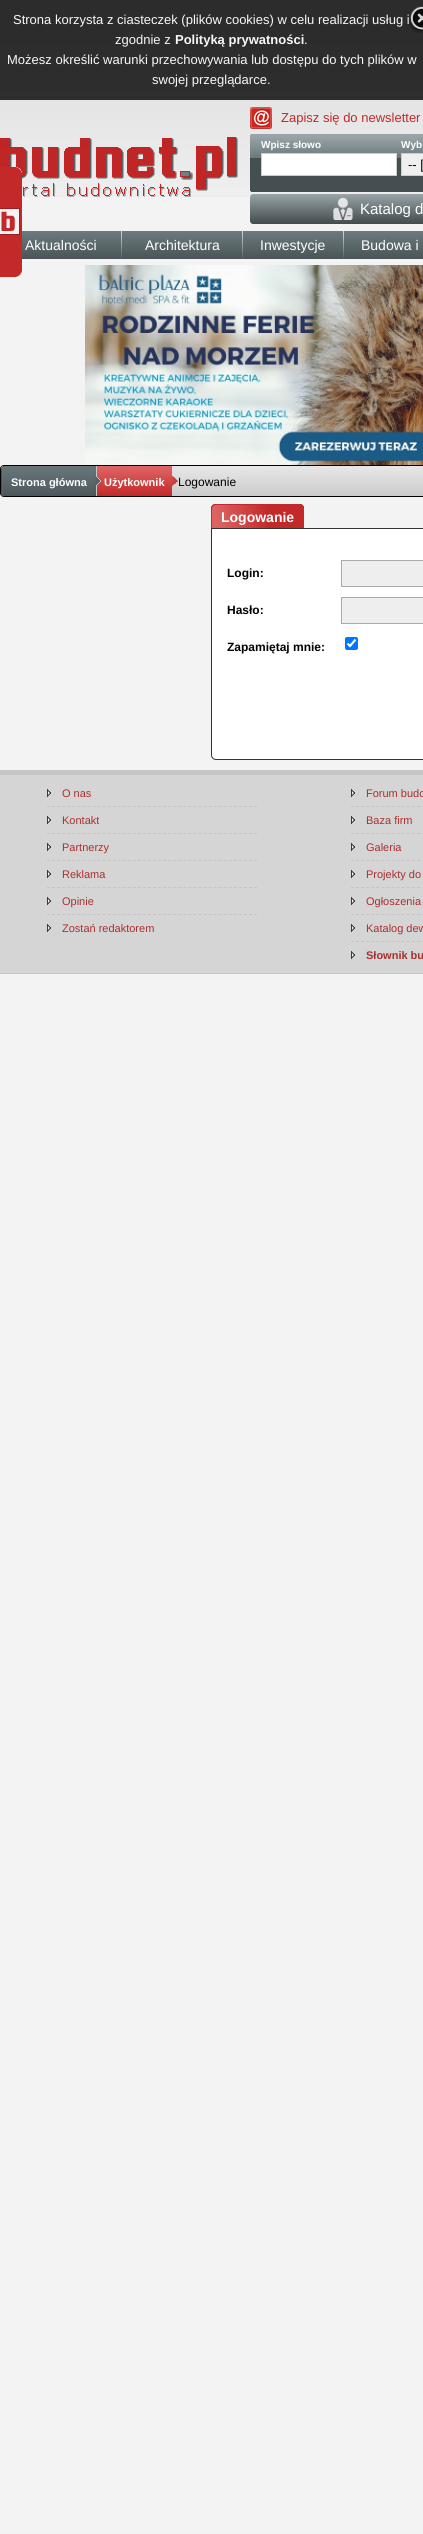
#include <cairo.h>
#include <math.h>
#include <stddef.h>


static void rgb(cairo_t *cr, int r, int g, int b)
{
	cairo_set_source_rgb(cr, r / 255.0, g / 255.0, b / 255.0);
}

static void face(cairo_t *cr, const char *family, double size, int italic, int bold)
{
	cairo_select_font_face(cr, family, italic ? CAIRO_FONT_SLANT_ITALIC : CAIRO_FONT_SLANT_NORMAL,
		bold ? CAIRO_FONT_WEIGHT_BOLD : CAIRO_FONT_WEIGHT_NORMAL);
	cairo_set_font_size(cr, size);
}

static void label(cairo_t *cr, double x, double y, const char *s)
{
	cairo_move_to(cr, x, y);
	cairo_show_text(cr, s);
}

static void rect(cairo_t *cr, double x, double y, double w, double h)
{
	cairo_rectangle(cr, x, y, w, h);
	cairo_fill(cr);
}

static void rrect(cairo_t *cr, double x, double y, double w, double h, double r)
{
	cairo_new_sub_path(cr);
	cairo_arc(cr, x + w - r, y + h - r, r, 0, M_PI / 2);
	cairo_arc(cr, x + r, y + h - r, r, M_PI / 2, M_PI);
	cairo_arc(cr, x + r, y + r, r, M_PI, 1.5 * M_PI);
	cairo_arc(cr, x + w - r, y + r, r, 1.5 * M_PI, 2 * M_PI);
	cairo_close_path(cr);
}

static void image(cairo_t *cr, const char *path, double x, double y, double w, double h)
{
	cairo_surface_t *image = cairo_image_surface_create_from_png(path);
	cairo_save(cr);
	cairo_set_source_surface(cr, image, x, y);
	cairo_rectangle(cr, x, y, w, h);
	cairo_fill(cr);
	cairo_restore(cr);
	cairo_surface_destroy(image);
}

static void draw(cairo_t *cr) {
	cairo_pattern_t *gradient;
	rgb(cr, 243, 243, 243);
	cairo_paint(cr);
	image(cr, "image0.png", 0, 0, 423, 197);
	cairo_set_source_rgba(cr, 0, 0, 0, 0.8);
	rect(cr, 0, 0, 423, 100);
	face(cr, "Liberation Sans", 13, 0, 0);
	rgb(cr, 248, 248, 248);
	label(cr, 13, 24, "Strona korzysta z ciasteczek (plików cookies) w celu realizacji usług i");
	image(cr, "image1.png", 408, 6, 15, 27);
	label(cr, 115, 44, "zgodnie z");
	face(cr, "Liberation Sans", 13, 0, 1);
	label(cr, 175, 44, "Polityką prywatności");
	face(cr, "Liberation Sans", 13, 0, 0);
	label(cr, 304, 44, ".");
	label(cr, 7, 64, "Możesz określić warunki przechowywania lub dostępu do tych plików w");
	label(cr, 152, 84, "swojej przeglądarce.");
	image(cr, "image4.png", 0, 137, 238, 60);
	image(cr, "image2.png", 0, 167, 22, 110);
	image(cr, "image3.png", 250, 107, 22, 22);
	rgb(cr, 195, 41, 41);
	label(cr, 281, 122, "Zapisz się do newsletter");
	image(cr, "image5.png", 250, 134, 1, 58);
	image(cr, "image6.png", 251, 134, 172, 58);
	face(cr, "Liberation Sans", 10, 0, 1);
	rgb(cr, 255, 255, 255);
	label(cr, 261, 148, "Wpisz słowo");
	cairo_rectangle(cr, 261.5, 153.5, 135, 22);
	cairo_fill_preserve(cr);
	rgb(cr, 204, 204, 204);
	cairo_set_line_width(cr, 1);
	cairo_stroke(cr);
	rgb(cr, 255, 255, 255);
	label(cr, 401, 148, "Wyb");
	rgb(cr, 239, 239, 239);
	cairo_rectangle(cr, 401.5, 153.5, 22, 22);
	cairo_fill_preserve(cr);
	rgb(cr, 204, 204, 204);
	cairo_stroke(cr);
	face(cr, "Liberation Sans", 13, 0, 0);
	rgb(cr, 0, 0, 0);
	label(cr, 408, 169, "-- [");
	gradient = cairo_pattern_create_linear(417, 194, 417, 224);
	cairo_pattern_add_color_stop_rgba(gradient, 0, 0.596, 0.643, 0.655, 1);
	cairo_pattern_add_color_stop_rgba(gradient, 1, 0.263, 0.294, 0.306, 1);
	cairo_set_source(cr, gradient);
	cairo_pattern_destroy(gradient);
	cairo_new_path(cr);
	cairo_move_to(cr, 253, 194);
	cairo_line_to(cr, 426, 194);
	cairo_line_to(cr, 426, 224);
	cairo_line_to(cr, 253, 224);
	cairo_curve_to(cr, 251.5, 224, 250, 222.5, 250, 221);
	cairo_line_to(cr, 250, 197);
	cairo_curve_to(cr, 250, 195.5, 251.5, 194, 253, 194);
	cairo_close_path(cr);
	cairo_fill(cr);
	image(cr, "image7.png", 333, 197, 20, 23);
	face(cr, "Liberation Sans", 15, 0, 0);
	rgb(cr, 255, 255, 255);
	label(cr, 360, 214, "Katalog d");
	image(cr, "image8.png", 121, 231, 223, 28);
	image(cr, "image9.png", 22, 231, 99, 28);
	face(cr, "Liberation Sans", 14, 0, 0);
	label(cr, 25, 250, "Aktualności");
	image(cr, "image10.png", 122, 231, 120, 28);
	label(cr, 145, 250, "Architektura");
	image(cr, "image11.png", 243, 231, 100, 28);
	label(cr, 260, 250, "Inwestycje");
	image(cr, "image12.png", 344, 231, 79, 28);
	label(cr, 361, 250, "Budowa i");
	image(cr, "image13.png", 85, 265, 338, 200);
	image(cr, "image14.png", 0, 466, 423, 31);
	rrect(cr, 0.5, 465.5, 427, 31, 3.5);
	rgb(cr, 0, 0, 0);
	cairo_stroke(cr);
	image(cr, "image15.png", 1, 466, 3, 30);
	image(cr, "image16.png", 4, 466, 90, 30);
	face(cr, "Liberation Sans", 11, 0, 1);
	rgb(cr, 255, 255, 255);
	label(cr, 11, 486, "Strona główna");
	image(cr, "image18.png", 97, 466, 74, 30);
	image(cr, "image17.png", 94, 466, 7, 30);
	label(cr, 104, 486, "Użytkownik");
	image(cr, "image19.png", 171, 466, 7, 30);
	face(cr, "Liberation Sans", 12, 0, 0);
	rgb(cr, 0, 0, 0);
	label(cr, 178, 486, "Logowanie");
	rgb(cr, 195, 41, 41);
	rect(cr, 268, 504, 36, 24);
	image(cr, "image20.png", 211, 504, 57, 24);
	image(cr, "image21.png", 302, 504, 2, 2);
	face(cr, "Liberation Sans", 14, 0, 1);
	rgb(cr, 255, 255, 255);
	label(cr, 221, 522, "Logowanie");
	cairo_new_path(cr);
	cairo_move_to(cr, 211.5, 528.5);
	cairo_line_to(cr, 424, 528.5);
	cairo_curve_to(cr, 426.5, 528.5, 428.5, 530.5, 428.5, 533);
	cairo_line_to(cr, 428.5, 755);
	cairo_curve_to(cr, 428.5, 757.5, 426.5, 759.5, 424, 759.5);
	cairo_line_to(cr, 216, 759.5);
	cairo_curve_to(cr, 213.5, 759.5, 211.5, 757.5, 211.5, 755);
	cairo_close_path(cr);
	cairo_fill_preserve(cr);
	rgb(cr, 51, 51, 51);
	cairo_stroke(cr);
	face(cr, "Liberation Sans", 12, 0, 1);
	rgb(cr, 0, 0, 0);
	label(cr, 227, 577, "Login:");
	rgb(cr, 238, 238, 238);
	cairo_rectangle(cr, 341.5, 560.5, 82, 26);
	cairo_fill_preserve(cr);
	rgb(cr, 170, 170, 170);
	cairo_stroke(cr);
	rgb(cr, 0, 0, 0);
	label(cr, 227, 614, "Hasło:");
	rgb(cr, 238, 238, 238);
	cairo_rectangle(cr, 341.5, 597.5, 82, 26);
	cairo_fill_preserve(cr);
	rgb(cr, 170, 170, 170);
	cairo_stroke(cr);
	rgb(cr, 0, 0, 0);
	label(cr, 227, 651, "Zapamiętaj mnie:");
	rgb(cr, 0, 117, 255);
	rrect(cr, 345, 637, 13, 13, 2);
	cairo_fill(cr);
	cairo_new_path(cr);
	cairo_move_to(cr, 347.5, 643.5);
	cairo_line_to(cr, 350, 646);
	cairo_line_to(cr, 355.5, 639.5);
	rgb(cr, 255, 255, 255);
	cairo_set_line_width(cr, 2.1);
	cairo_stroke(cr);
	rgb(cr, 213, 213, 213);
	rect(cr, 0, 775, 423, 198);
	rgb(cr, 197, 197, 197);
	rect(cr, 0, 770, 423, 5);
	rect(cr, 0, 973, 423, 1);
	image(cr, "image22.png", 47, 789, 4, 8);
	face(cr, "Liberation Sans", 11, 0, 0);
	rgb(cr, 169, 47, 46);
	label(cr, 62, 797, "O nas");
	cairo_new_path(cr);
	cairo_move_to(cr, 47, 806.5);
	cairo_line_to(cr, 257, 806.5);
	rgb(cr, 197, 197, 197);
	cairo_set_line_width(cr, 1);
	cairo_set_dash(cr, (double[]){3, 2.05}, 2, 0);
	cairo_stroke(cr);
	image(cr, "image22.png", 47, 816, 4, 8);
	rgb(cr, 169, 47, 46);
	label(cr, 62, 824, "Kontakt");
	cairo_new_path(cr);
	cairo_move_to(cr, 47, 833.5);
	cairo_line_to(cr, 257, 833.5);
	rgb(cr, 197, 197, 197);
	cairo_stroke(cr);
	image(cr, "image22.png", 47, 843, 4, 8);
	rgb(cr, 169, 47, 46);
	label(cr, 62, 851, "Partnerzy");
	cairo_new_path(cr);
	cairo_move_to(cr, 47, 860.5);
	cairo_line_to(cr, 257, 860.5);
	rgb(cr, 197, 197, 197);
	cairo_stroke(cr);
	image(cr, "image22.png", 47, 870, 4, 8);
	rgb(cr, 169, 47, 46);
	label(cr, 62, 878, "Reklama");
	cairo_new_path(cr);
	cairo_move_to(cr, 47, 887.5);
	cairo_line_to(cr, 257, 887.5);
	rgb(cr, 197, 197, 197);
	cairo_stroke(cr);
	image(cr, "image22.png", 47, 897, 4, 8);
	rgb(cr, 169, 47, 46);
	label(cr, 62, 905, "Opinie");
	cairo_new_path(cr);
	cairo_move_to(cr, 47, 914.5);
	cairo_line_to(cr, 257, 914.5);
	rgb(cr, 197, 197, 197);
	cairo_stroke(cr);
	image(cr, "image22.png", 47, 924, 4, 8);
	rgb(cr, 169, 47, 46);
	label(cr, 62, 932, "Zostań redaktorem");
	image(cr, "image22.png", 351, 789, 4, 8);
	label(cr, 366, 797, "Forum budo");
	cairo_new_path(cr);
	cairo_move_to(cr, 351, 806.5);
	cairo_line_to(cr, 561, 806.5);
	rgb(cr, 197, 197, 197);
	cairo_stroke(cr);
	image(cr, "image22.png", 351, 816, 4, 8);
	rgb(cr, 169, 47, 46);
	label(cr, 366, 824, "Baza firm");
	cairo_new_path(cr);
	cairo_move_to(cr, 351, 833.5);
	cairo_line_to(cr, 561, 833.5);
	rgb(cr, 197, 197, 197);
	cairo_stroke(cr);
	image(cr, "image22.png", 351, 843, 4, 8);
	rgb(cr, 169, 47, 46);
	label(cr, 366, 851, "Galeria");
	cairo_new_path(cr);
	cairo_move_to(cr, 351, 860.5);
	cairo_line_to(cr, 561, 860.5);
	rgb(cr, 197, 197, 197);
	cairo_stroke(cr);
	image(cr, "image22.png", 351, 870, 4, 8);
	rgb(cr, 169, 47, 46);
	label(cr, 366, 878, "Projekty do");
	cairo_new_path(cr);
	cairo_move_to(cr, 351, 887.5);
	cairo_line_to(cr, 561, 887.5);
	rgb(cr, 197, 197, 197);
	cairo_stroke(cr);
	image(cr, "image22.png", 351, 897, 4, 8);
	rgb(cr, 169, 47, 46);
	label(cr, 366, 905, "Ogłoszenia");
	cairo_new_path(cr);
	cairo_move_to(cr, 351, 914.5);
	cairo_line_to(cr, 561, 914.5);
	rgb(cr, 197, 197, 197);
	cairo_stroke(cr);
	image(cr, "image22.png", 351, 924, 4, 8);
	rgb(cr, 169, 47, 46);
	label(cr, 366, 932, "Katalog dew");
	cairo_new_path(cr);
	cairo_move_to(cr, 351, 941.5);
	cairo_line_to(cr, 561, 941.5);
	rgb(cr, 197, 197, 197);
	cairo_stroke(cr);
	image(cr, "image22.png", 351, 951, 4, 8);
	face(cr, "Liberation Sans", 11, 0, 1);
	rgb(cr, 169, 47, 46);
	label(cr, 366, 959, "Słownik bu");
}

int main(void) {
	cairo_surface_t *surface = cairo_image_surface_create(CAIRO_FORMAT_RGB24, 423, 2534);
	cairo_t *cr = cairo_create(surface);
	cairo_font_options_t *options = cairo_font_options_create();
	cairo_font_options_set_hint_metrics(options, CAIRO_HINT_METRICS_OFF);
	cairo_font_options_set_hint_style(options, CAIRO_HINT_STYLE_NONE);
	cairo_set_font_options(cr, options);
	cairo_set_miter_limit(cr, 4);
	draw(cr);
	cairo_surface_write_to_png(surface, "render.png");
	cairo_font_options_destroy(options);
	cairo_destroy(cr);
	cairo_surface_destroy(surface);
	return 0;
}
